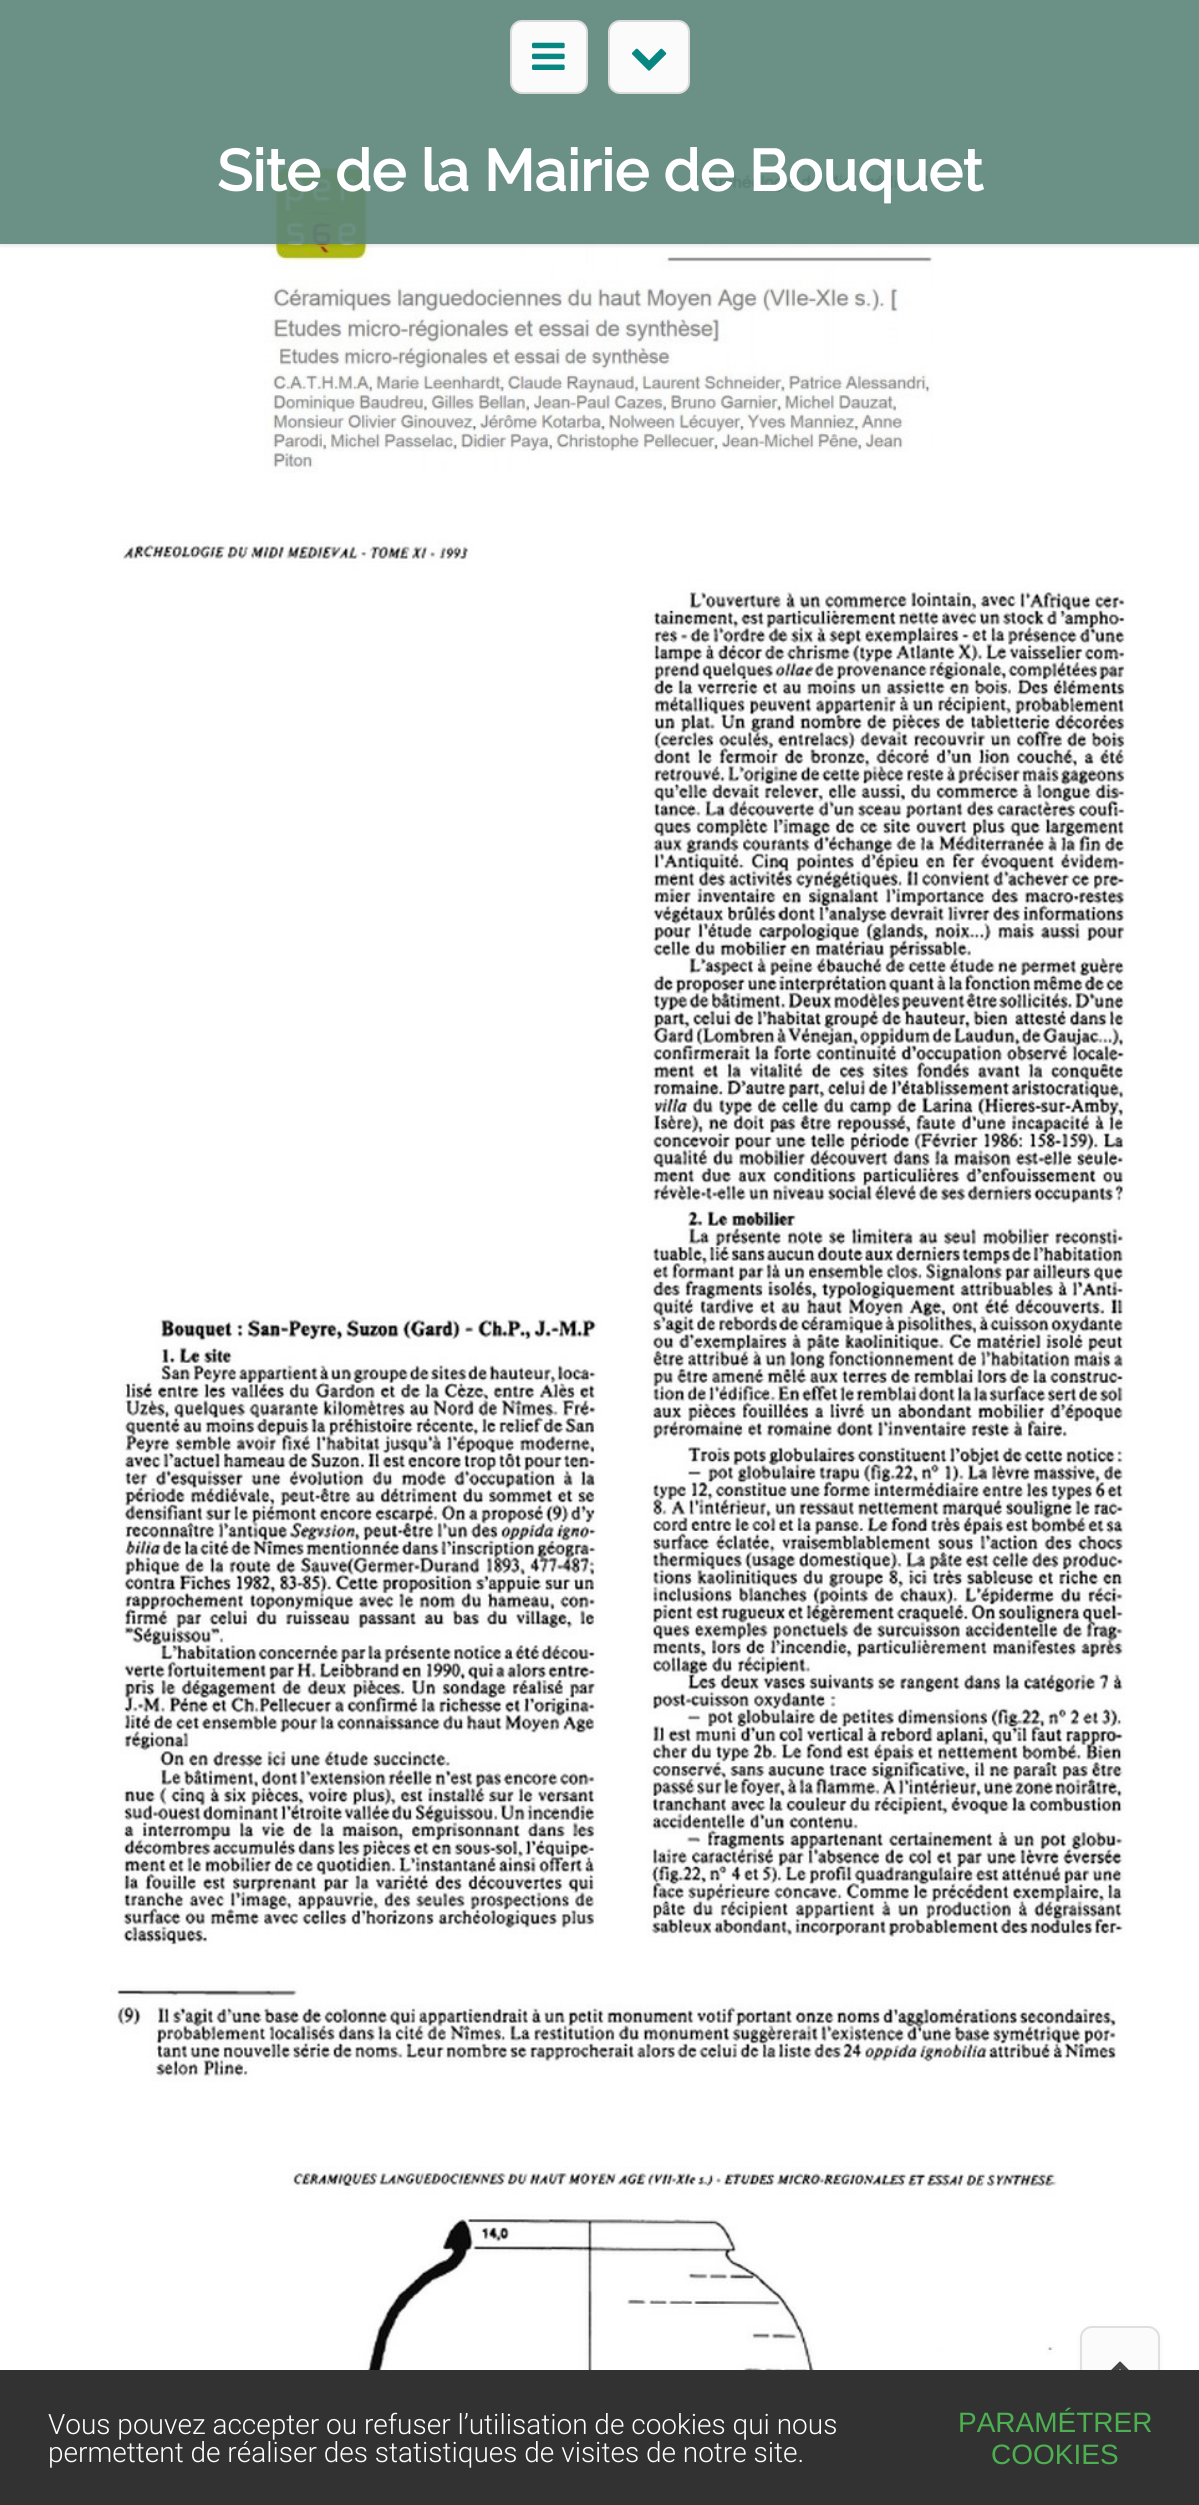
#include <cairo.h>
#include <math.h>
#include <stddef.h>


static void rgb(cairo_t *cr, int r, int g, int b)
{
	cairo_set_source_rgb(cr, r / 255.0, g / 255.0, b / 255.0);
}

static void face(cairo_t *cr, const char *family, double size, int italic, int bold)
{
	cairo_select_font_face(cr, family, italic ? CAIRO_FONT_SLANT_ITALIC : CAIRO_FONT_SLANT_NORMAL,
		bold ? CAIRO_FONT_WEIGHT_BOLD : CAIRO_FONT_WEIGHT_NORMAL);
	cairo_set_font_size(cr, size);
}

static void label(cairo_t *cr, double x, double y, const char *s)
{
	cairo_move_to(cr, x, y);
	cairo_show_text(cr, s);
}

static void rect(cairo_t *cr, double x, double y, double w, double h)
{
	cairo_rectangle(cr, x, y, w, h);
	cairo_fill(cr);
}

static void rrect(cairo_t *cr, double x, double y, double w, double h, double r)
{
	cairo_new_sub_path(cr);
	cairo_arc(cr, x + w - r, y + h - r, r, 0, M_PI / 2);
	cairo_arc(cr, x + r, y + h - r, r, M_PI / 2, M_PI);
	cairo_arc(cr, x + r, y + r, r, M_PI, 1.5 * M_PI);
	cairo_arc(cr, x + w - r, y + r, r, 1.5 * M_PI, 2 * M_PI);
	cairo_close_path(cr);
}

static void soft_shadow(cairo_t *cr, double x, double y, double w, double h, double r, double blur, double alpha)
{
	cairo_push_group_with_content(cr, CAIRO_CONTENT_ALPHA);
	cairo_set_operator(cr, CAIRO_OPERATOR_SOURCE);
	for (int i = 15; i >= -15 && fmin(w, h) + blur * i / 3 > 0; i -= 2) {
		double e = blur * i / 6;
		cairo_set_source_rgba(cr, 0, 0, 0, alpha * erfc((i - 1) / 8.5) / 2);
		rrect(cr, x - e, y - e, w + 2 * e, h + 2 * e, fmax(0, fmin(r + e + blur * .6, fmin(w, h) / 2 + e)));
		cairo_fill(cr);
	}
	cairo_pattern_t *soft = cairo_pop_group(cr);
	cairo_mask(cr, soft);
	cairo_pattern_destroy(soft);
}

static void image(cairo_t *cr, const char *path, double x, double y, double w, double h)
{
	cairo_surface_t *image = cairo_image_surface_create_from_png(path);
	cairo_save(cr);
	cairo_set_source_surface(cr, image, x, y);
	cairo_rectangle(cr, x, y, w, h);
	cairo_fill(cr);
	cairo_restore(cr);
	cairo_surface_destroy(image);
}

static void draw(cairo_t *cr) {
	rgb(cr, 255, 255, 255);
	cairo_paint(cr);
	image(cr, "image2.png", 264, 150, 669, 323);
	cairo_save(cr);
	cairo_rectangle(cr, 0, 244, 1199, 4);
	cairo_clip(cr);
	rgb(cr, 0, 0, 0);
	soft_shadow(cr, 0, 2, 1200, 244, 0, 2, 0.1);
	cairo_restore(cr);
	cairo_set_source_rgba(cr, 0.357, 0.525, 0.478, 0.9);
	rect(cr, 0, 0, 1199, 244);
	rgb(cr, 251, 251, 251);
	rrect(cr, 511, 21, 76, 72, 11);
	cairo_fill_preserve(cr);
	rgb(cr, 219, 219, 219);
	cairo_stroke(cr);
	image(cr, "image0.png", 532, 42, 33, 28);
	rgb(cr, 251, 251, 251);
	rrect(cr, 609, 21, 80, 72, 11);
	cairo_fill_preserve(cr);
	rgb(cr, 219, 219, 219);
	cairo_stroke(cr);
	image(cr, "image1.png", 631, 48, 36, 23);
	face(cr, "Raleway", 58, 0, 1);
	rgb(cr, 255, 255, 255);
	label(cr, 217, 191, "Site de la Mairie de Bouquet");
	image(cr, "image3.png", 110, 540, 1016, 1542);
	image(cr, "image4.png", 289, 2166, 769, 204);
	rgb(cr, 0, 0, 0);
	soft_shadow(cr, 1080, 2328, 80, 80, 12, 3, 0.05);
	rgb(cr, 251, 251, 251);
	rrect(cr, 1081, 2327, 78, 78, 11);
	cairo_fill_preserve(cr);
	rgb(cr, 223, 223, 223);
	cairo_stroke(cr);
	image(cr, "image5.png", 1111, 2361, 18, 9);
	rgb(cr, 50, 50, 50);
	rect(cr, 0, 2370, 1199, 135);
	face(cr, "Roboto Light", 28, 0, 0);
	rgb(cr, 255, 255, 255);
	label(cr, 48, 2434, "Vous pouvez accepter ou refuser l’utilisation de cookies qui nous");
	label(cr, 48, 2462, "permettent de réaliser des statistiques de visites de notre site.");
	face(cr, "Liberation Sans", 28, 0, 0);
	rgb(cr, 76, 175, 80);
	label(cr, 958, 2432, "PARAMÉTRER");
	label(cr, 991, 2464, "COOKIES");
}

int main(void) {
	cairo_surface_t *surface = cairo_image_surface_create(CAIRO_FORMAT_RGB24, 1199, 2505);
	cairo_t *cr = cairo_create(surface);
	cairo_font_options_t *options = cairo_font_options_create();
	cairo_font_options_set_hint_metrics(options, CAIRO_HINT_METRICS_OFF);
	cairo_font_options_set_hint_style(options, CAIRO_HINT_STYLE_NONE);
	cairo_set_font_options(cr, options);
	cairo_set_miter_limit(cr, 4);
	draw(cr);
	cairo_surface_write_to_png(surface, "render.png");
	cairo_font_options_destroy(options);
	cairo_destroy(cr);
	cairo_surface_destroy(surface);
	return 0;
}
